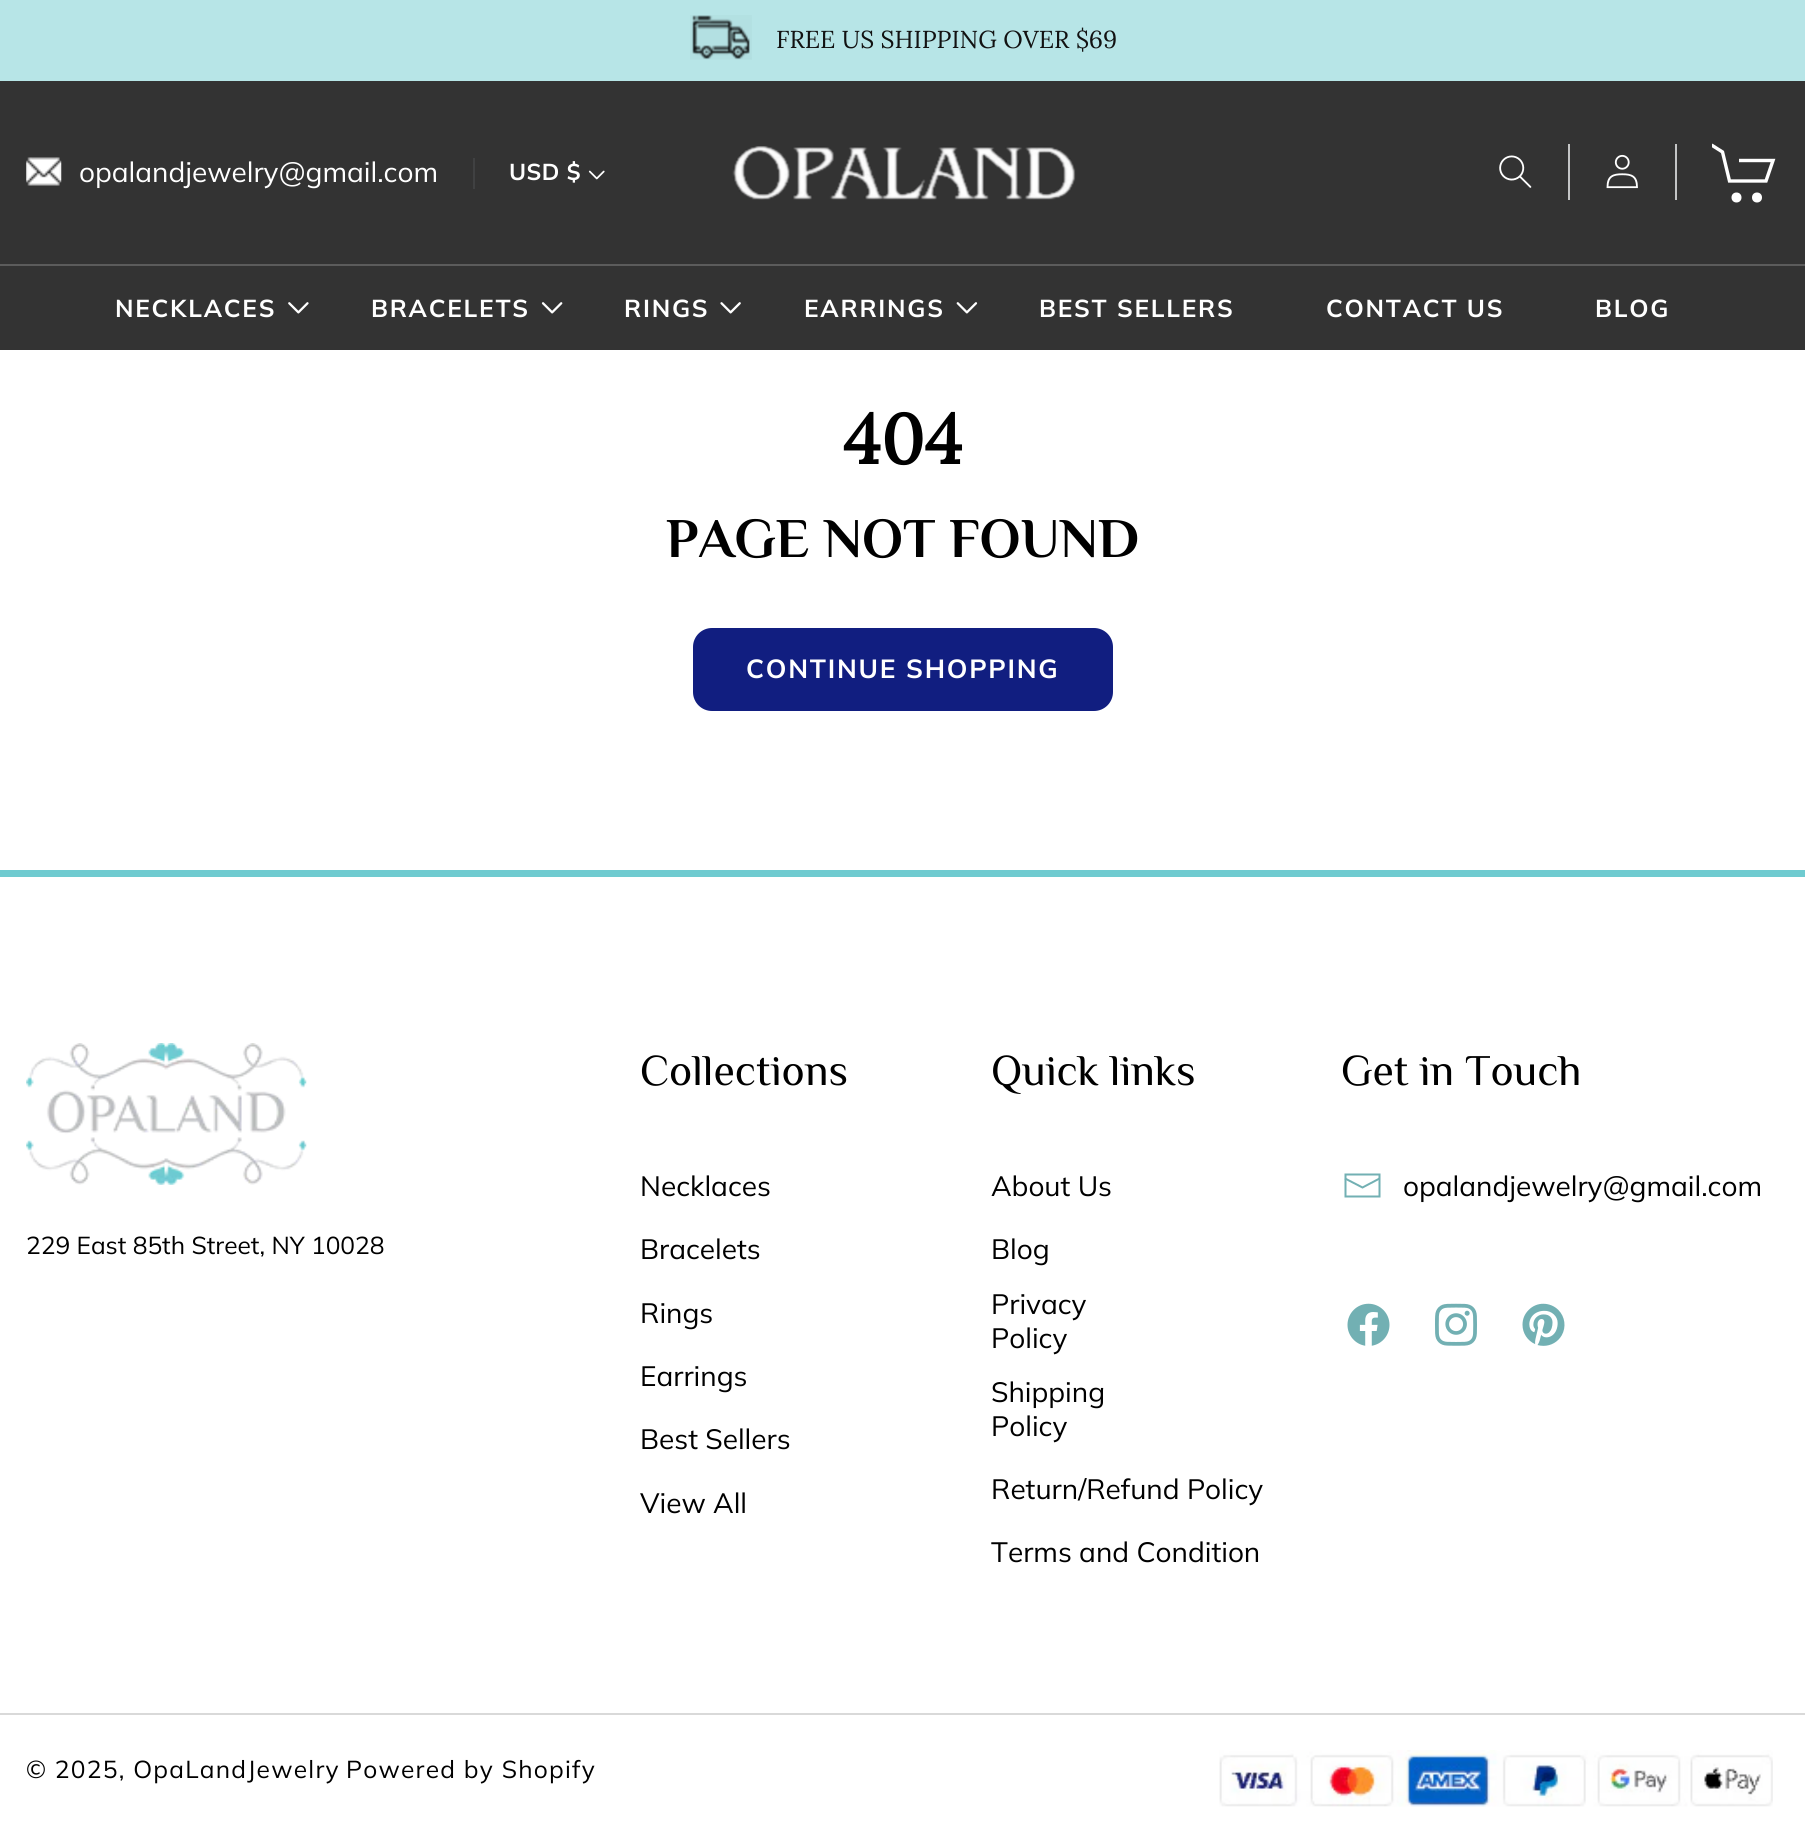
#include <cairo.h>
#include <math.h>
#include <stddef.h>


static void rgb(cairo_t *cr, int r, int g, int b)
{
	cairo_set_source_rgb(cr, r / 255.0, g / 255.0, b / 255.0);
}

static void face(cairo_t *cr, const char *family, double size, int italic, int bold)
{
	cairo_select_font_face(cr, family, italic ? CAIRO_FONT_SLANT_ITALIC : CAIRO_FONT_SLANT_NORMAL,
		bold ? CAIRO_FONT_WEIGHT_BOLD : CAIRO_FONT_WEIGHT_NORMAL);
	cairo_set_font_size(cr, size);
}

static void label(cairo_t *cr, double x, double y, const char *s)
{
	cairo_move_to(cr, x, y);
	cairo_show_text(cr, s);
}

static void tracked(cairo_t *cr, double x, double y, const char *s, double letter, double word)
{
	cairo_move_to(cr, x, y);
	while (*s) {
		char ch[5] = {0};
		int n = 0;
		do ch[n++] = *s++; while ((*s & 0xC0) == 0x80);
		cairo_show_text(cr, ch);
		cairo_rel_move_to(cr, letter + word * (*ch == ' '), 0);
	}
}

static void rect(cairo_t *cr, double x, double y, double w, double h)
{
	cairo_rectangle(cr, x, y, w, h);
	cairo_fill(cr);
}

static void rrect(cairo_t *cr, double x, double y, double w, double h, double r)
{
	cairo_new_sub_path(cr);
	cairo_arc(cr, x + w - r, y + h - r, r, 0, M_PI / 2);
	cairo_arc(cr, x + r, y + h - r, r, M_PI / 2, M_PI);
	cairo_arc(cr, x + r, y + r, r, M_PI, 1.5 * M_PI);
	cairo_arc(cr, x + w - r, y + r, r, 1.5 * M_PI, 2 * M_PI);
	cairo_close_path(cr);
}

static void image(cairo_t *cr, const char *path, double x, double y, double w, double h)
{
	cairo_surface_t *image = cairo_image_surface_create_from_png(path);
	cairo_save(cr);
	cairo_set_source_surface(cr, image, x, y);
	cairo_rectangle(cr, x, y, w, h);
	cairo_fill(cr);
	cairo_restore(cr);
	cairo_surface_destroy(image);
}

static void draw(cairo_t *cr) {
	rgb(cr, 255, 255, 255);
	cairo_paint(cr);
	rgb(cr, 183, 229, 231);
	rect(cr, 0, 0, 1805, 81);
	image(cr, "image0.png", 690, 15, 62, 45);
	face(cr, "Lora", 24.5, 0, 0);
	rgb(cr, 18, 18, 18);
	label(cr, 776, 48, "FREE US SHIPPING OVER $69");
	rgb(cr, 51, 51, 51);
	rect(cr, 0, 81, 1805, 269);
	rgb(cr, 92, 92, 92);
	rect(cr, 0, 264, 1805, 2);
	image(cr, "image1.png", 26, 157, 36, 29);
	face(cr, "Muli", 28, 0, 0);
	rgb(cr, 255, 255, 255);
	label(cr, 79, 182, "opalandjewelry@gmail.com");
	rgb(cr, 64, 65, 66);
	rect(cr, 473, 158, 2, 31);
	face(cr, "Muli", 23, 0, 1);
	rgb(cr, 255, 255, 255);
	tracked(cr, 509, 180, "USD $", 0.5, 0);
	image(cr, "image2.png", 588, 170, 17, 10);
	image(cr, "image3.png", 732, 146, 344, 54);
	rgb(cr, 196, 197, 198);
	rect(cr, 1568, 144, 2, 56);
	image(cr, "image4.png", 1499, 155, 33, 33);
	rect(cr, 1675, 144, 2, 56);
	image(cr, "image5.png", 1606, 154, 32, 35);
	rgb(cr, 255, 255, 255);
	cairo_arc(cr, 1736.5, 197.5, 5, 0, 2 * M_PI);
	cairo_fill(cr);
	cairo_arc(cr, 1757, 197.5, 5, 0, 2 * M_PI);
	cairo_fill(cr);
	cairo_save(cr);
	cairo_rectangle(cr, 1712, 138, 68, 69);
	cairo_clip(cr);
	cairo_new_path(cr);
	cairo_move_to(cr, 1711.5, 145);
	cairo_line_to(cr, 1722.5, 152);
	cairo_line_to(cr, 1729.5, 181);
	cairo_line_to(cr, 1766, 181);
	cairo_line_to(cr, 1773, 160.5);
	cairo_line_to(cr, 1739, 160.5);
	cairo_set_line_width(cr, 3.4);
	cairo_stroke(cr);
	cairo_restore(cr);
	face(cr, "Muli", 24.5, 0, 1);
	tracked(cr, 115, 317, "NECKLACES", 1.75, 0);
	image(cr, "image6.png", 288, 302, 21, 12);
	tracked(cr, 371, 317, "BRACELETS", 1.75, 0);
	image(cr, "image7.png", 541, 302, 22, 12);
	tracked(cr, 624, 317, "RINGS", 1.75, 0);
	image(cr, "image8.png", 720, 302, 21, 12);
	tracked(cr, 804, 317, "EARRINGS", 1.75, 0);
	image(cr, "image9.png", 956, 302, 22, 12);
	tracked(cr, 1039, 317, "BEST SELLERS", 1.75, 0);
	tracked(cr, 1326, 317, "CONTACT US", 1.75, 0);
	tracked(cr, 1595, 317, "BLOG", 1.75, 0);
	face(cr, "Lora", 70, 0, 1);
	rgb(cr, 0, 0, 0);
	label(cr, 843, 464, "404");
	face(cr, "Philosopher", 56, 0, 1);
	label(cr, 666, 557, "PAGE NOT FOUND");
	rgb(cr, 17, 30, 128);
	rrect(cr, 693, 628, 420, 83, 19);
	cairo_fill(cr);
	face(cr, "Muli", 26.25, 0, 1);
	rgb(cr, 255, 255, 255);
	tracked(cr, 746, 678, "CONTINUE SHOPPING", 1.75, 0);
	rgb(cr, 111, 203, 208);
	rect(cr, 0, 870, 1805, 7);
	face(cr, "Philosopher", 43.75, 0, 0);
	rgb(cr, 0, 0, 0);
	label(cr, 640, 1085, "Collections");
	face(cr, "Muli", 28, 0, 0);
	label(cr, 640, 1196, "Necklaces");
	label(cr, 640, 1259, "Bracelets");
	label(cr, 640, 1323, "Rings");
	label(cr, 640, 1386, "Earrings");
	label(cr, 640, 1449, "Best Sellers");
	label(cr, 640, 1513, "View All");
	face(cr, "Philosopher", 43.75, 0, 0);
	label(cr, 991, 1085, "Quick links");
	face(cr, "Muli", 28, 0, 0);
	label(cr, 991, 1196, "About Us");
	label(cr, 991, 1259, "Blog");
	label(cr, 991, 1314, "Privacy");
	label(cr, 991, 1348, "Policy");
	label(cr, 991, 1402, "Shipping");
	label(cr, 991, 1436, "Policy");
	label(cr, 991, 1499, "Return/Refund Policy");
	label(cr, 991, 1562, "Terms and Condition");
	face(cr, "Philosopher", 43.75, 0, 0);
	label(cr, 1341, 1085, "Get in Touch");
	cairo_new_path(cr);
	cairo_move_to(cr, 1345, 1178.5);
	cairo_line_to(cr, 1362.5, 1187.5);
	cairo_line_to(cr, 1379.5, 1178.5);
	rgb(cr, 114, 176, 179);
	cairo_stroke(cr);
	cairo_new_path(cr);
	cairo_move_to(cr, 1344.5, 1173.5);
	cairo_line_to(cr, 1344.5, 1197.5);
	cairo_line_to(cr, 1380.5, 1197.5);
	cairo_line_to(cr, 1380.5, 1173.5);
	cairo_close_path(cr);
	cairo_move_to(cr, 1378.5, 1195.5);
	cairo_line_to(cr, 1346.5, 1195.5);
	cairo_line_to(cr, 1346.5, 1175.5);
	cairo_line_to(cr, 1378.5, 1175.5);
	cairo_close_path(cr);
	cairo_fill(cr);
	face(cr, "Muli", 28, 0, 0);
	rgb(cr, 0, 0, 0);
	label(cr, 1403, 1196, "opalandjewelry@gmail.com");
	image(cr, "image10.png", 1347, 1303, 43, 43);
	image(cr, "image11.png", 1435, 1303, 42, 43);
	image(cr, "image12.png", 1522, 1303, 43, 43);
	image(cr, "image13.png", 26, 1043, 281, 142);
	face(cr, "Muli", 24.5, 0, 0);
	label(cr, 26, 1254, "229 East 85th Street, NY 10028");
	rgb(cr, 217, 217, 217);
	rect(cr, 0, 1713, 1805, 2);
	rgb(cr, 0, 0, 0);
	tracked(cr, 26, 1778, "© 2025, OpaLandJewelry", 1.25, 0);
	tracked(cr, 346, 1778, "Powered by Shopify", 1.25, 0);
	image(cr, "image14.png", 1219, 1750, 554, 57);
}

int main(void) {
	cairo_surface_t *surface = cairo_image_surface_create(CAIRO_FORMAT_RGB24, 1805, 1844);
	cairo_t *cr = cairo_create(surface);
	cairo_font_options_t *options = cairo_font_options_create();
	cairo_font_options_set_hint_metrics(options, CAIRO_HINT_METRICS_OFF);
	cairo_font_options_set_hint_style(options, CAIRO_HINT_STYLE_NONE);
	cairo_set_font_options(cr, options);
	cairo_set_miter_limit(cr, 4);
	draw(cr);
	cairo_surface_write_to_png(surface, "render.png");
	cairo_font_options_destroy(options);
	cairo_destroy(cr);
	cairo_surface_destroy(surface);
	return 0;
}
